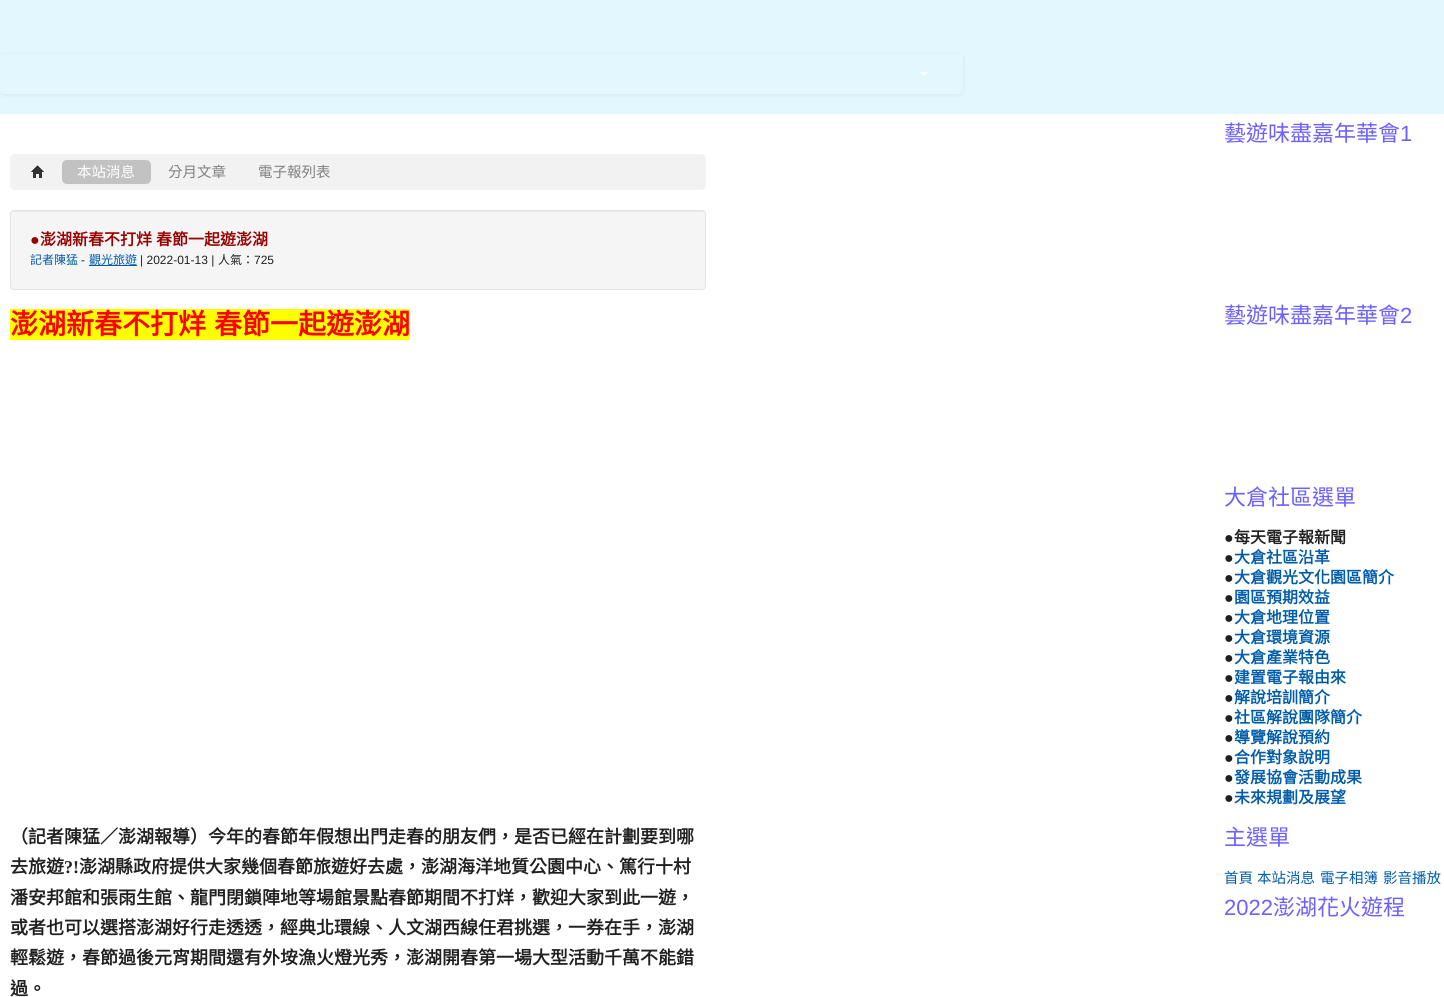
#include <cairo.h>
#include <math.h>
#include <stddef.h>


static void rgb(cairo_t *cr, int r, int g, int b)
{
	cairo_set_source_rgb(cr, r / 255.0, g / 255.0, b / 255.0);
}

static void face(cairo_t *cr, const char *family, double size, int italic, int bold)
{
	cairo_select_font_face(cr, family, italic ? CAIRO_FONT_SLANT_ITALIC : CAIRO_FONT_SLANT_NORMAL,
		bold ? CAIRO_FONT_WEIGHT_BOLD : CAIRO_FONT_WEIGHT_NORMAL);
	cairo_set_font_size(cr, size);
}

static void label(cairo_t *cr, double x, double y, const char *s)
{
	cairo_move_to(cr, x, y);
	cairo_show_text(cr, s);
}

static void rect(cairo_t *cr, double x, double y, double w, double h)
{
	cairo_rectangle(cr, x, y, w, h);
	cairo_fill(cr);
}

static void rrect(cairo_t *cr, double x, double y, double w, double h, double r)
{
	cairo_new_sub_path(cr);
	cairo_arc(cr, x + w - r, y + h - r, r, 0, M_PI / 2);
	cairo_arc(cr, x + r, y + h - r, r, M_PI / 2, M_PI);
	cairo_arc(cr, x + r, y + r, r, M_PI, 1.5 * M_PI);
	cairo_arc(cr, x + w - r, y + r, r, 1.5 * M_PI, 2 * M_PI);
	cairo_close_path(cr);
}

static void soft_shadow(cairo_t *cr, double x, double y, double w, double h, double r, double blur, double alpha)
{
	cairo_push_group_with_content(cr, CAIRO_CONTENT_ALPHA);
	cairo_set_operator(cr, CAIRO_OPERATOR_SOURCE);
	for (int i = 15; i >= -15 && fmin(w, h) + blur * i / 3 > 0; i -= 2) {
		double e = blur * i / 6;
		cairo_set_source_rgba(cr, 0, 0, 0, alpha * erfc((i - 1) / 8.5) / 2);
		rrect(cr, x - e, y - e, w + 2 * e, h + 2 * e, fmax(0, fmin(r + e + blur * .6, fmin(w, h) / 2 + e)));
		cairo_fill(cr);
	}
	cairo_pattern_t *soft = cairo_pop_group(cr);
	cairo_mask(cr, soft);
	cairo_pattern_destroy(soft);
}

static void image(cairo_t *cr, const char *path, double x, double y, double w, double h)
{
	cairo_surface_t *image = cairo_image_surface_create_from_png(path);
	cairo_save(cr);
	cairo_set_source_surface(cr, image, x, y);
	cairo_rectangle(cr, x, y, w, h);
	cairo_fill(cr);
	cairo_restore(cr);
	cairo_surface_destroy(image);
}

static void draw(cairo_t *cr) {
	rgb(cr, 227, 247, 255);
	cairo_paint(cr);
	cairo_save(cr);
	cairo_set_fill_rule(cr, CAIRO_FILL_RULE_EVEN_ODD);
	cairo_new_path(cr);
	cairo_move_to(cr, 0, 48);
	cairo_line_to(cr, 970, 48);
	cairo_line_to(cr, 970, 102);
	cairo_line_to(cr, 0, 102);
	cairo_close_path(cr);
	cairo_move_to(cr, 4, 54);
	cairo_line_to(cr, 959, 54);
	cairo_curve_to(cr, 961, 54, 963, 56, 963, 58);
	cairo_line_to(cr, 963, 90);
	cairo_curve_to(cr, 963, 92, 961, 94, 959, 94);
	cairo_line_to(cr, 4, 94);
	cairo_curve_to(cr, 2, 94, 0, 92, 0, 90);
	cairo_line_to(cr, 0, 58);
	cairo_curve_to(cr, 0, 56, 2, 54, 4, 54);
	cairo_close_path(cr);
	cairo_clip(cr);
	rgb(cr, 0, 0, 0);
	soft_shadow(cr, 0, 55, 963, 40, 4, 2, 0.07);
	cairo_restore(cr);
	rgb(cr, 255, 255, 255);
	cairo_new_path(cr);
	cairo_move_to(cr, 920, 72);
	cairo_line_to(cr, 928, 72);
	cairo_line_to(cr, 924, 76);
	cairo_close_path(cr);
	cairo_fill(cr);
	rect(cr, 0, 114, 1444, 883);
	rgb(cr, 242, 242, 242);
	rrect(cr, 10, 154, 696, 36, 5);
	cairo_fill(cr);
	image(cr, "image0.png", 31, 165, 13, 13);
	rgb(cr, 194, 194, 194);
	rrect(cr, 62, 160, 89, 24, 5);
	cairo_fill(cr);
	face(cr, "Noto Sans CJK TC", 14.5, 0, 0);
	rgb(cr, 255, 255, 255);
	label(cr, 77, 177, "本站消息");
	rgb(cr, 128, 128, 128);
	label(cr, 168, 177, "分月文章");
	label(cr, 258, 177, "電子報列表");
	rgb(cr, 245, 245, 245);
	rrect(cr, 10, 210, 696, 80, 4);
	cairo_fill(cr);
	rgb(cr, 233, 233, 233);
	cairo_new_path(cr);
	cairo_move_to(cr, 14, 212);
	cairo_line_to(cr, 702, 212);
	cairo_curve_to(cr, 704, 212, 705, 213, 705, 215);
	cairo_curve_to(cr, 705, 213, 704, 211, 702, 211);
	cairo_line_to(cr, 14, 211);
	cairo_curve_to(cr, 12, 211, 11, 213, 11, 215);
	cairo_curve_to(cr, 11, 213, 12, 212, 14, 212);
	cairo_close_path(cr);
	cairo_fill(cr);
	rrect(cr, 10.5, 210.5, 695, 79, 3.5);
	rgb(cr, 227, 227, 227);
	cairo_set_line_width(cr, 1);
	cairo_stroke(cr);
	face(cr, "Liberation Sans", 16, 0, 1);
	rgb(cr, 153, 0, 0);
	label(cr, 30, 245, "●");
	face(cr, "Noto Sans CJK TC", 16, 0, 1);
	label(cr, 40, 245, "澎湖新春不打烊");
	label(cr, 156, 245, "春節一起遊澎湖");
	face(cr, "Noto Sans CJK TC", 12, 0, 0);
	rgb(cr, 0, 92, 168);
	label(cr, 30, 264, "記者陳猛");
	face(cr, "Liberation Sans", 12, 0, 0);
	rgb(cr, 32, 32, 32);
	label(cr, 81, 264, "-");
	face(cr, "Noto Sans CJK TC", 12, 0, 0);
	rgb(cr, 0, 92, 168);
	label(cr, 89, 264, "觀光旅遊");
	rect(cr, 89, 265, 48, 1);
	face(cr, "Liberation Sans", 12, 0, 0);
	rgb(cr, 32, 32, 32);
	label(cr, 140, 264, "| 2022-01-13 |");
	face(cr, "Noto Sans CJK TC", 12, 0, 0);
	label(cr, 218, 264, "人氣：");
	face(cr, "Liberation Sans", 12, 0, 0);
	label(cr, 254, 264, "725");
	rgb(cr, 255, 255, 0);
	rect(cr, 10, 309, 400, 31);
	face(cr, "Noto Sans CJK TC", 28, 0, 1);
	rgb(cr, 255, 0, 0);
	label(cr, 10, 334, "澎湖新春不打烊");
	label(cr, 214, 334, "春節一起遊澎湖");
	face(cr, "Noto Sans CJK TC", 18, 0, 1);
	rgb(cr, 32, 32, 32);
	label(cr, 10, 843, "（記者陳猛／澎湖報導）今年的春節年假想出門走春的朋友們，是否已經在計劃要到哪");
	label(cr, 10, 873, "去旅遊");
	face(cr, "Liberation Serif", 18, 0, 1);
	label(cr, 64, 873, "?!");
	face(cr, "Noto Sans CJK TC", 18, 0, 1);
	label(cr, 79, 873, "澎湖縣政府提供大家幾個春節旅遊好去處，澎湖海洋地質公園中心、篤行十村");
	label(cr, 10, 904, "潘安邦館和張雨生館、龍門閉鎖陣地等場館景點春節期間不打烊，歡迎大家到此一遊，");
	label(cr, 10, 934, "或者也可以選搭澎湖好行走透透，經典北環線、人文湖西線任君挑選，一券在手，澎湖");
	label(cr, 10, 964, "輕鬆遊，春節過後元宵期間還有外垵漁火燈光秀，澎湖開春第一場大型活動千萬不能錯");
	label(cr, 10, 995, "過。");
	face(cr, "Noto Sans CJK TC", 22, 0, 0);
	rgb(cr, 108, 96, 255);
	label(cr, 1224, 141, "藝遊味盡嘉年華會");
	face(cr, "Liberation Sans", 22, 0, 0);
	label(cr, 1400, 141, "1");
	face(cr, "Noto Sans CJK TC", 22, 0, 0);
	label(cr, 1224, 323, "藝遊味盡嘉年華會");
	face(cr, "Liberation Sans", 22, 0, 0);
	label(cr, 1400, 323, "2");
	face(cr, "Noto Sans CJK TC", 22, 0, 0);
	label(cr, 1224, 505, "大倉社區選單");
	face(cr, "Liberation Sans", 16, 0, 1);
	rgb(cr, 32, 32, 32);
	label(cr, 1224, 543, "●");
	face(cr, "Noto Sans CJK TC", 16, 0, 1);
	label(cr, 1234, 543, "每天電子報新聞");
	face(cr, "Liberation Sans", 16, 0, 1);
	label(cr, 1224, 563, "●");
	face(cr, "Noto Sans CJK TC", 16, 0, 1);
	rgb(cr, 0, 92, 168);
	label(cr, 1234, 563, "大倉社區沿革");
	face(cr, "Liberation Sans", 16, 0, 1);
	rgb(cr, 32, 32, 32);
	label(cr, 1224, 583, "●");
	face(cr, "Noto Sans CJK TC", 16, 0, 1);
	rgb(cr, 0, 92, 168);
	label(cr, 1234, 583, "大倉觀光文化園區簡介");
	face(cr, "Liberation Sans", 16, 0, 1);
	rgb(cr, 32, 32, 32);
	label(cr, 1224, 603, "●");
	face(cr, "Noto Sans CJK TC", 16, 0, 1);
	rgb(cr, 0, 92, 168);
	label(cr, 1234, 603, "園區預期效益");
	face(cr, "Liberation Sans", 16, 0, 1);
	rgb(cr, 32, 32, 32);
	label(cr, 1224, 623, "●");
	face(cr, "Noto Sans CJK TC", 16, 0, 1);
	rgb(cr, 0, 92, 168);
	label(cr, 1234, 623, "大倉地理位置");
	face(cr, "Liberation Sans", 16, 0, 1);
	rgb(cr, 32, 32, 32);
	label(cr, 1224, 643, "●");
	face(cr, "Noto Sans CJK TC", 16, 0, 1);
	rgb(cr, 0, 92, 168);
	label(cr, 1234, 643, "大倉環境資源");
	face(cr, "Liberation Sans", 16, 0, 1);
	rgb(cr, 32, 32, 32);
	label(cr, 1224, 663, "●");
	face(cr, "Noto Sans CJK TC", 16, 0, 1);
	rgb(cr, 0, 92, 168);
	label(cr, 1234, 663, "大倉產業特色");
	face(cr, "Liberation Sans", 16, 0, 1);
	rgb(cr, 32, 32, 32);
	label(cr, 1224, 683, "●");
	face(cr, "Noto Sans CJK TC", 16, 0, 1);
	rgb(cr, 0, 92, 168);
	label(cr, 1234, 683, "建置電子報由來");
	face(cr, "Liberation Sans", 16, 0, 1);
	rgb(cr, 32, 32, 32);
	label(cr, 1224, 703, "●");
	face(cr, "Noto Sans CJK TC", 16, 0, 1);
	rgb(cr, 0, 92, 168);
	label(cr, 1234, 703, "解說培訓簡介");
	face(cr, "Liberation Sans", 16, 0, 1);
	rgb(cr, 32, 32, 32);
	label(cr, 1224, 723, "●");
	face(cr, "Noto Sans CJK TC", 16, 0, 1);
	rgb(cr, 0, 92, 168);
	label(cr, 1234, 723, "社區解說團隊簡介");
	face(cr, "Liberation Sans", 16, 0, 1);
	rgb(cr, 32, 32, 32);
	label(cr, 1224, 743, "●");
	face(cr, "Noto Sans CJK TC", 16, 0, 1);
	rgb(cr, 0, 92, 168);
	label(cr, 1234, 743, "導覽解說預約");
	face(cr, "Liberation Sans", 16, 0, 1);
	rgb(cr, 32, 32, 32);
	label(cr, 1224, 763, "●");
	face(cr, "Noto Sans CJK TC", 16, 0, 1);
	rgb(cr, 0, 92, 168);
	label(cr, 1234, 763, "合作對象說明");
	face(cr, "Liberation Sans", 16, 0, 1);
	rgb(cr, 32, 32, 32);
	label(cr, 1224, 783, "●");
	face(cr, "Noto Sans CJK TC", 16, 0, 1);
	rgb(cr, 0, 92, 168);
	label(cr, 1234, 783, "發展協會活動成果");
	face(cr, "Liberation Sans", 16, 0, 1);
	rgb(cr, 32, 32, 32);
	label(cr, 1224, 803, "●");
	face(cr, "Noto Sans CJK TC", 16, 0, 1);
	rgb(cr, 0, 92, 168);
	label(cr, 1234, 803, "未來規劃及展望");
	face(cr, "Noto Sans CJK TC", 22, 0, 0);
	rgb(cr, 108, 96, 255);
	label(cr, 1224, 845, "主選單");
	face(cr, "Noto Sans CJK TC", 14.5, 0, 0);
	rgb(cr, 0, 92, 168);
	label(cr, 1224, 883, "首頁");
	label(cr, 1257, 883, "本站消息");
	label(cr, 1320, 883, "電子相簿");
	label(cr, 1383, 883, "影音播放");
	face(cr, "Liberation Sans", 22, 0, 0);
	rgb(cr, 108, 96, 255);
	label(cr, 1224, 915, "2022");
	face(cr, "Noto Sans CJK TC", 22, 0, 0);
	label(cr, 1273, 915, "澎湖花火遊程");
}

int main(void) {
	cairo_surface_t *surface = cairo_image_surface_create(CAIRO_FORMAT_RGB24, 1444, 997);
	cairo_t *cr = cairo_create(surface);
	cairo_font_options_t *options = cairo_font_options_create();
	cairo_font_options_set_hint_metrics(options, CAIRO_HINT_METRICS_OFF);
	cairo_font_options_set_hint_style(options, CAIRO_HINT_STYLE_NONE);
	cairo_set_font_options(cr, options);
	cairo_set_miter_limit(cr, 4);
	draw(cr);
	cairo_surface_write_to_png(surface, "render.png");
	cairo_font_options_destroy(options);
	cairo_destroy(cr);
	cairo_surface_destroy(surface);
	return 0;
}
